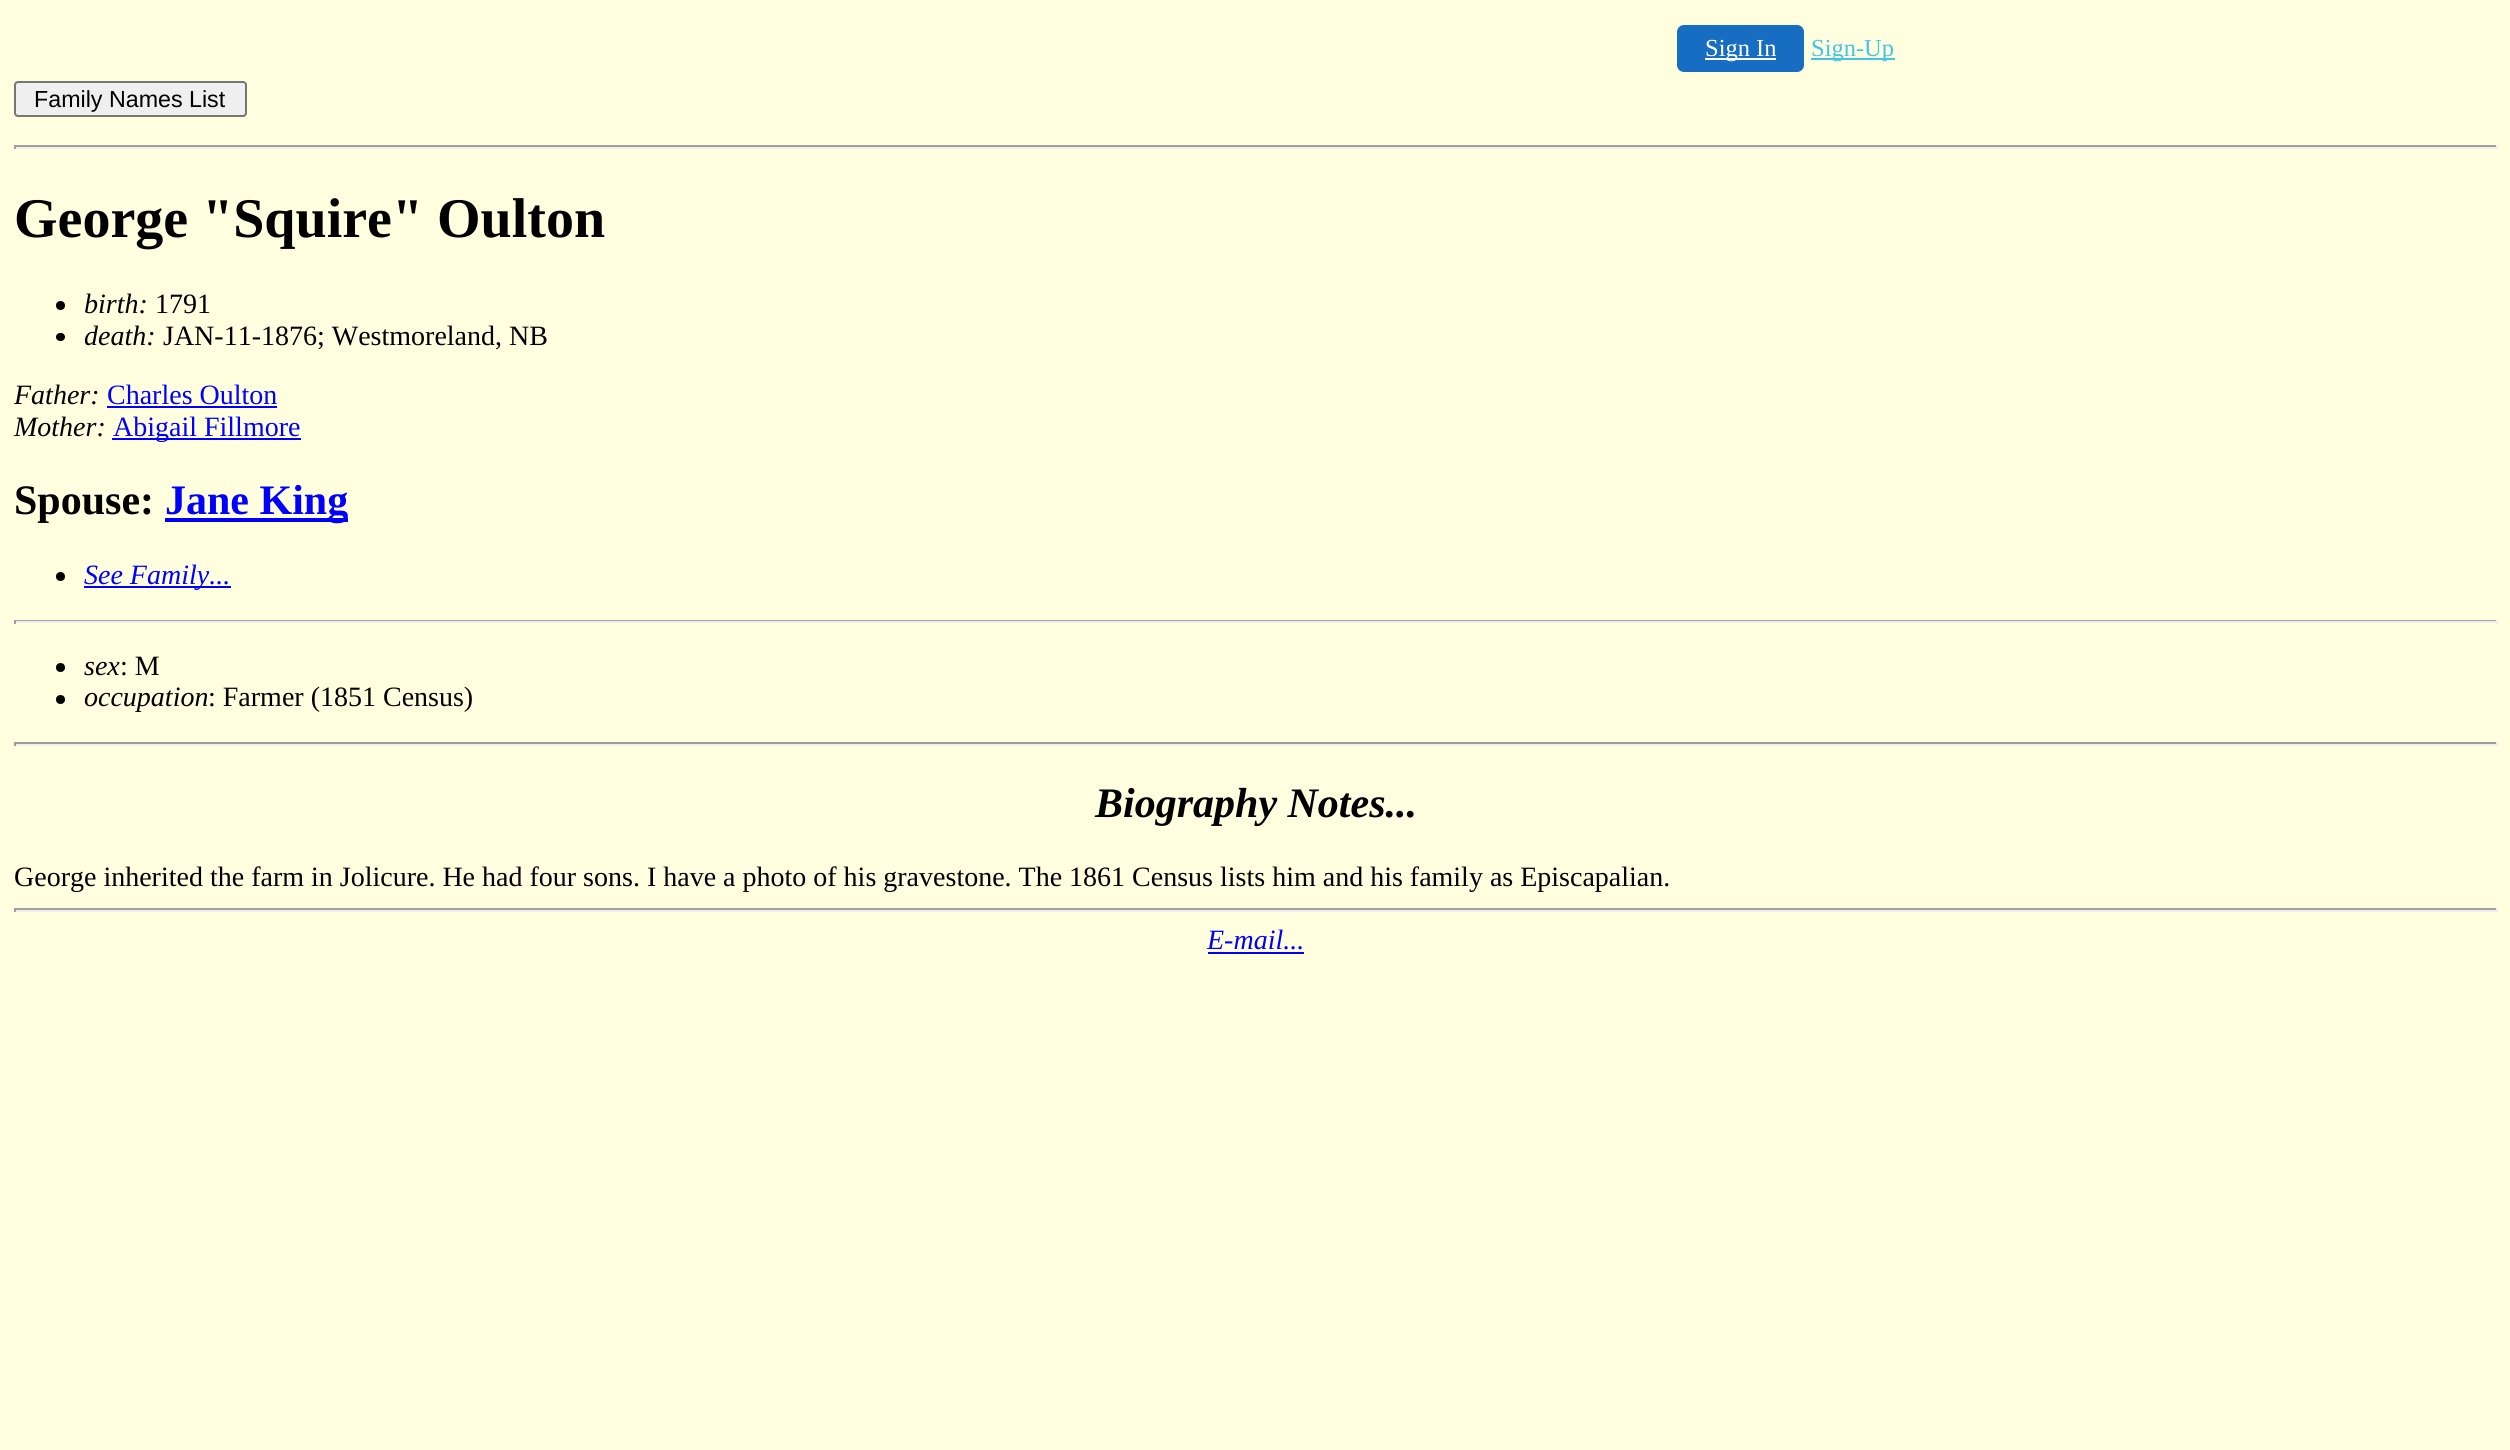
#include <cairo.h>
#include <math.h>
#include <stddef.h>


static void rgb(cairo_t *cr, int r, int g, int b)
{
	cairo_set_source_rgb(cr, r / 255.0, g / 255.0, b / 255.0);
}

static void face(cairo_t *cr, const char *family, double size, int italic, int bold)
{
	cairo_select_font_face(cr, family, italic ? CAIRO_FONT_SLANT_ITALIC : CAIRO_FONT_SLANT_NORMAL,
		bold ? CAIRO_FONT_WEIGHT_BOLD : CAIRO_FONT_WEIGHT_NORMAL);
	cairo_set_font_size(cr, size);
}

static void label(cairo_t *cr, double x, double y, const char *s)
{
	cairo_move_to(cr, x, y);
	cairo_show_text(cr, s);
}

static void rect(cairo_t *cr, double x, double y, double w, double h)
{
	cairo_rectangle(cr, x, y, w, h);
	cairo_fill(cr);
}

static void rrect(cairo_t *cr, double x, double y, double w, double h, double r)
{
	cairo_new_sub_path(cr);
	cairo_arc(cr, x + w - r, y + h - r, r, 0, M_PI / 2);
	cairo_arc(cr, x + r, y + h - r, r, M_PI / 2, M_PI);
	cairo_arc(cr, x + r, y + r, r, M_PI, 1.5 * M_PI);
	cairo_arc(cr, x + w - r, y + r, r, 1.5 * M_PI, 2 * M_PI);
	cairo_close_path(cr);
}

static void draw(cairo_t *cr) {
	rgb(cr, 255, 255, 224);
	cairo_paint(cr);
	rgb(cr, 22, 109, 194);
	rrect(cr, 1678, 26, 125, 45, 6);
	cairo_fill_preserve(cr);
	cairo_stroke(cr);
	rgb(cr, 255, 255, 255);
	rect(cr, 1705, 58, 71, 2);
	face(cr, "Liberation Serif", 24.5, 0, 0);
	label(cr, 1705, 56, "Sign In");
	rgb(cr, 65, 197, 228);
	rect(cr, 1811, 58, 84, 2);
	label(cr, 1811, 56, "Sign-Up");
	rgb(cr, 239, 239, 239);
	rrect(cr, 15, 82, 231, 34, 3);
	cairo_fill_preserve(cr);
	rgb(cr, 118, 118, 118);
	cairo_stroke(cr);
	face(cr, "Liberation Sans", 23.25, 0, 0);
	rgb(cr, 0, 0, 0);
	label(cr, 34, 107, "Family Names List");
	rgb(cr, 159, 159, 159);
	rect(cr, 14, 145, 2483, 2);
	rgb(cr, 238, 238, 238);
	rect(cr, 2496, 145, 2, 4);
	rect(cr, 14, 147, 2483, 2);
	rgb(cr, 159, 159, 159);
	rect(cr, 14, 145, 2, 4);
	face(cr, "Liberation Serif", 56, 0, 1);
	rgb(cr, 0, 0, 0);
	label(cr, 14, 237, "George \"Squire\" Oulton");
	cairo_new_path(cr);
	cairo_arc(cr, 60.5, 305.5, 4.5, 0, 2 * M_PI);
	cairo_fill(cr);
	face(cr, "Liberation Serif", 28, 1, 0);
	label(cr, 84, 313, "birth:");
	face(cr, "Liberation Serif", 28, 0, 0);
	label(cr, 155, 313, "1791");
	rrect(cr, 56, 333, 9, 8, 4);
	cairo_fill(cr);
	face(cr, "Liberation Serif", 28, 1, 0);
	label(cr, 84, 345, "death:");
	face(cr, "Liberation Serif", 28, 0, 0);
	label(cr, 163, 345, "JAN-11-1876; Westmoreland, NB");
	face(cr, "Liberation Serif", 28, 1, 0);
	label(cr, 14, 404, "Father:");
	face(cr, "Liberation Serif", 28, 0, 0);
	rgb(cr, 0, 0, 255);
	label(cr, 107, 404, "Charles Oulton");
	rect(cr, 107, 406, 170, 2);
	face(cr, "Liberation Serif", 28, 1, 0);
	rgb(cr, 0, 0, 0);
	label(cr, 14, 436, "Mother:");
	rgb(cr, 0, 0, 255);
	rect(cr, 112, 438, 189, 2);
	face(cr, "Liberation Serif", 28, 0, 0);
	label(cr, 113, 436, "Abigail Fillmore");
	face(cr, "Liberation Serif", 42, 0, 1);
	rgb(cr, 0, 0, 0);
	label(cr, 14, 514, "Spouse:");
	rgb(cr, 0, 0, 255);
	rect(cr, 165, 518, 183, 4);
	label(cr, 165, 514, "Jane King");
	rgb(cr, 0, 0, 0);
	cairo_new_path(cr);
	cairo_arc(cr, 60.5, 576.5, 4.5, 0, 2 * M_PI);
	cairo_fill(cr);
	rgb(cr, 0, 0, 255);
	rect(cr, 84, 586, 147, 2);
	face(cr, "Liberation Serif", 28, 1, 0);
	label(cr, 84, 584, "See Family...");
	rgb(cr, 159, 159, 159);
	rect(cr, 14, 620, 2483, 1);
	rgb(cr, 238, 238, 238);
	rect(cr, 2496, 620, 2, 4);
	rect(cr, 14, 621, 2483, 2);
	rgb(cr, 159, 159, 159);
	rect(cr, 14, 620, 2, 4);
	rgb(cr, 0, 0, 0);
	cairo_new_path(cr);
	cairo_arc(cr, 60.5, 667.5, 4.5, 0, 2 * M_PI);
	cairo_fill(cr);
	label(cr, 84, 675, "sex");
	face(cr, "Liberation Serif", 28, 0, 0);
	label(cr, 120, 675, ": M");
	cairo_new_path(cr);
	cairo_arc(cr, 60.5, 699.5, 4.5, 0, 2 * M_PI);
	cairo_fill(cr);
	face(cr, "Liberation Serif", 28, 1, 0);
	label(cr, 84, 706, "occupation");
	face(cr, "Liberation Serif", 28, 0, 0);
	label(cr, 208, 706, ": Farmer (1851 Census)");
	rgb(cr, 159, 159, 159);
	rect(cr, 14, 742, 2483, 2);
	rgb(cr, 238, 238, 238);
	rect(cr, 2496, 742, 2, 4);
	rect(cr, 14, 744, 2483, 2);
	rgb(cr, 159, 159, 159);
	rect(cr, 14, 742, 2, 4);
	face(cr, "Liberation Serif", 42, 1, 1);
	rgb(cr, 0, 0, 0);
	label(cr, 1095, 817, "Biography Notes...");
	face(cr, "Liberation Serif", 28, 0, 0);
	label(cr, 14, 886, "George inherited the farm in Jolicure. He had four sons. I have a photo of his gravestone. The 1861 Census lists him and his family as Episcapalian.");
	rgb(cr, 159, 159, 159);
	rect(cr, 14, 908, 2483, 2);
	rgb(cr, 238, 238, 238);
	rect(cr, 2496, 908, 2, 4);
	rect(cr, 14, 910, 2483, 2);
	rgb(cr, 159, 159, 159);
	rect(cr, 14, 908, 2, 4);
	face(cr, "Liberation Serif", 28, 1, 0);
	rgb(cr, 0, 0, 255);
	label(cr, 1207, 949, "E-mail...");
	rect(cr, 1208, 952, 96, 2);
}

int main(void) {
	cairo_surface_t *surface = cairo_image_surface_create(CAIRO_FORMAT_RGB24, 2510, 1450);
	cairo_t *cr = cairo_create(surface);
	cairo_font_options_t *options = cairo_font_options_create();
	cairo_font_options_set_hint_metrics(options, CAIRO_HINT_METRICS_OFF);
	cairo_font_options_set_hint_style(options, CAIRO_HINT_STYLE_NONE);
	cairo_set_font_options(cr, options);
	cairo_set_miter_limit(cr, 4);
	draw(cr);
	cairo_surface_write_to_png(surface, "render.png");
	cairo_font_options_destroy(options);
	cairo_destroy(cr);
	cairo_surface_destroy(surface);
	return 0;
}
